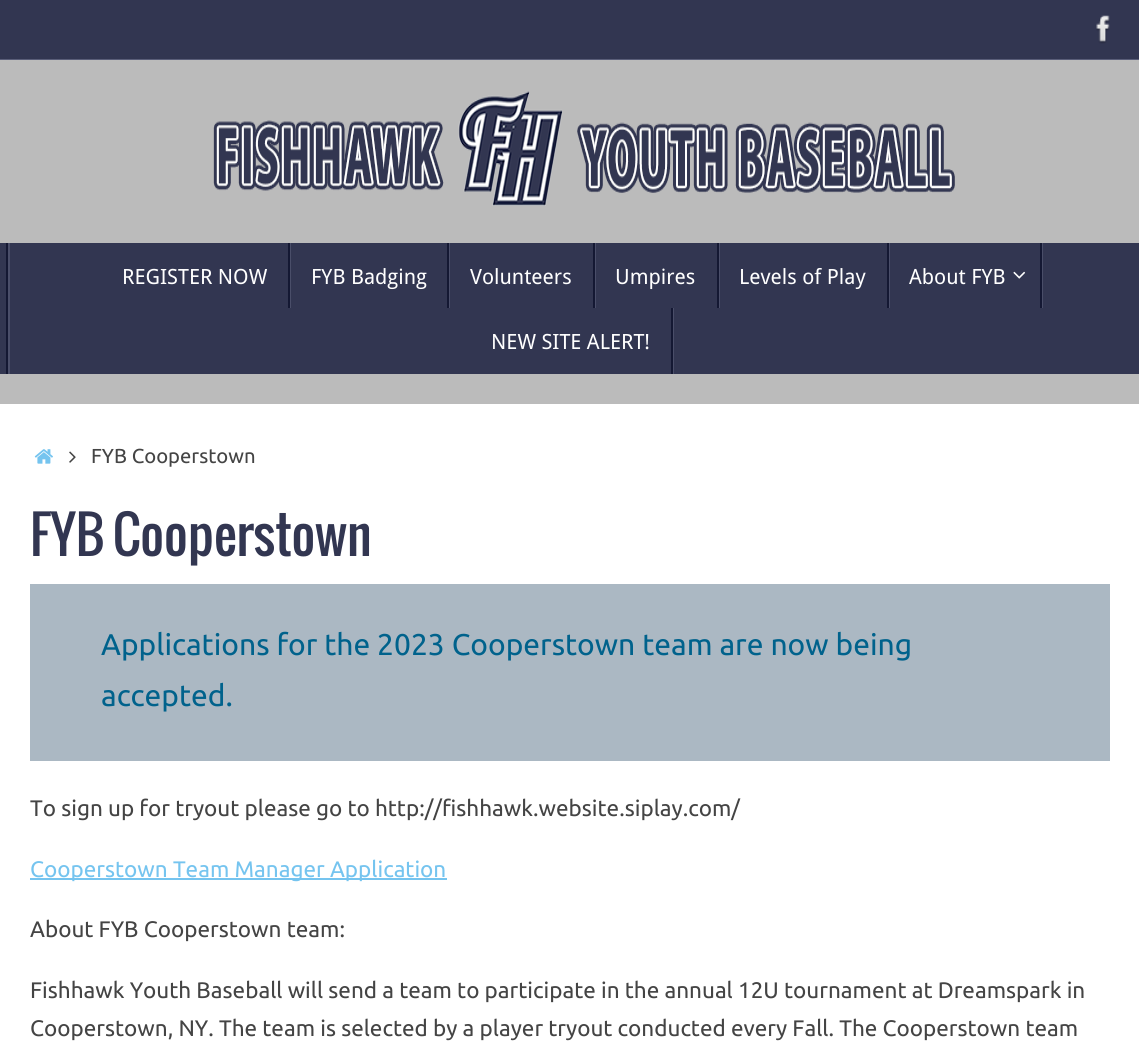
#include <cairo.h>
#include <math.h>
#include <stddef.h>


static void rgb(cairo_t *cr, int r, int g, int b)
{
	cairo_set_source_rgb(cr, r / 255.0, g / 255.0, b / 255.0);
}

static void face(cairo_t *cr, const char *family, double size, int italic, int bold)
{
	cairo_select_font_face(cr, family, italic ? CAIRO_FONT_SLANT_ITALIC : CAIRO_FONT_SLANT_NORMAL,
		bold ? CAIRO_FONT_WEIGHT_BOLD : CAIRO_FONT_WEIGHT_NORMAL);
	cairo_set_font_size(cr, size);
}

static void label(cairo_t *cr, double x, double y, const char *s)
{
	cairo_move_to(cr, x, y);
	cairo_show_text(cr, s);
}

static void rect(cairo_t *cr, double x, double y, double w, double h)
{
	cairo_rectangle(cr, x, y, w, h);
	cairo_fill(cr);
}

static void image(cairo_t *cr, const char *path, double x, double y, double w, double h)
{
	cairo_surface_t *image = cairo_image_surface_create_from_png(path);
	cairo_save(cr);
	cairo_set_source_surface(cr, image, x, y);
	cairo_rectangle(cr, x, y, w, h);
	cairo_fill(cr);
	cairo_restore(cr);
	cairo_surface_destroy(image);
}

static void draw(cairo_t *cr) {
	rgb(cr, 187, 187, 187);
	cairo_paint(cr);
	rgb(cr, 50, 54, 81);
	rect(cr, 0, 0, 1139, 59);
	rgb(cr, 90, 94, 121);
	rect(cr, 0, 59, 1139, 1);
	image(cr, "image0.png", 1096, 15, 14, 29);
	image(cr, "image1.png", 213, 91, 742, 115);
	rgb(cr, 50, 54, 81);
	rect(cr, 0, 243, 1139, 131);
	rgb(cr, 20, 24, 51);
	cairo_new_path(cr);
	cairo_move_to(cr, 6, 243);
	cairo_line_to(cr, 6, 374);
	cairo_line_to(cr, 1131, 374);
	cairo_line_to(cr, 8, 374);
	cairo_line_to(cr, 8, 243);
	cairo_close_path(cr);
	cairo_fill(cr);
	rgb(cr, 74, 78, 105);
	rect(cr, 8, 243, 2, 131);
	cairo_new_path(cr);
	cairo_move_to(cr, 102, 308);
	cairo_line_to(cr, 291, 308);
	cairo_line_to(cr, 291, 243);
	cairo_line_to(cr, 290, 243);
	cairo_line_to(cr, 290, 308);
	cairo_close_path(cr);
	cairo_fill(cr);
	rgb(cr, 20, 24, 51);
	rect(cr, 288, 243, 2, 65);
	face(cr, "Droid Sans", 21, 0, 0);
	rgb(cr, 255, 255, 255);
	label(cr, 122, 284, "REGISTER NOW");
	rgb(cr, 74, 78, 105);
	cairo_new_path(cr);
	cairo_move_to(cr, 291, 308);
	cairo_line_to(cr, 450, 308);
	cairo_line_to(cr, 450, 243);
	cairo_line_to(cr, 448, 243);
	cairo_line_to(cr, 448, 308);
	cairo_close_path(cr);
	cairo_fill(cr);
	rgb(cr, 20, 24, 51);
	rect(cr, 447, 243, 2, 65);
	rgb(cr, 255, 255, 255);
	label(cr, 311, 284, "FYB Badging");
	rgb(cr, 74, 78, 105);
	cairo_new_path(cr);
	cairo_move_to(cr, 450, 308);
	cairo_line_to(cr, 596, 308);
	cairo_line_to(cr, 596, 243);
	cairo_line_to(cr, 594, 243);
	cairo_line_to(cr, 594, 308);
	cairo_close_path(cr);
	cairo_fill(cr);
	rgb(cr, 20, 24, 51);
	rect(cr, 593, 243, 2, 65);
	rgb(cr, 255, 255, 255);
	label(cr, 470, 284, "Volunteers");
	rgb(cr, 74, 78, 105);
	cairo_new_path(cr);
	cairo_move_to(cr, 596, 308);
	cairo_line_to(cr, 720, 308);
	cairo_line_to(cr, 720, 243);
	cairo_line_to(cr, 718, 243);
	cairo_line_to(cr, 718, 308);
	cairo_close_path(cr);
	cairo_fill(cr);
	rgb(cr, 20, 24, 51);
	rect(cr, 717, 243, 2, 65);
	rgb(cr, 255, 255, 255);
	label(cr, 615, 284, "Umpires");
	rgb(cr, 74, 78, 105);
	cairo_new_path(cr);
	cairo_move_to(cr, 720, 308);
	cairo_line_to(cr, 890, 308);
	cairo_line_to(cr, 890, 243);
	cairo_line_to(cr, 888, 243);
	cairo_line_to(cr, 888, 308);
	cairo_close_path(cr);
	cairo_fill(cr);
	rgb(cr, 20, 24, 51);
	rect(cr, 887, 243, 2, 65);
	rgb(cr, 255, 255, 255);
	label(cr, 739, 284, "Levels of Play");
	rgb(cr, 74, 78, 105);
	cairo_new_path(cr);
	cairo_move_to(cr, 890, 308);
	cairo_line_to(cr, 1043, 308);
	cairo_line_to(cr, 1043, 243);
	cairo_line_to(cr, 1041, 243);
	cairo_line_to(cr, 1041, 308);
	cairo_close_path(cr);
	cairo_fill(cr);
	rgb(cr, 20, 24, 51);
	rect(cr, 1040, 243, 2, 65);
	rgb(cr, 255, 255, 255);
	label(cr, 909, 284, "About FYB");
	image(cr, "image2.png", 1013, 271, 13, 8);
	rgb(cr, 74, 78, 105);
	cairo_new_path(cr);
	cairo_move_to(cr, 471, 374);
	cairo_line_to(cr, 674, 374);
	cairo_line_to(cr, 674, 308);
	cairo_line_to(cr, 672, 308);
	cairo_line_to(cr, 672, 374);
	cairo_close_path(cr);
	cairo_fill(cr);
	rgb(cr, 20, 24, 51);
	rect(cr, 671, 308, 2, 66);
	rgb(cr, 255, 255, 255);
	label(cr, 491, 349, "NEW SITE ALERT!");
	rect(cr, 0, 404, 1139, 641);
	image(cr, "image3.png", 34, 449, 19, 15);
	image(cr, "image4.png", 69, 451, 7, 12);
	face(cr, "Ubuntu", 20.25, 0, 0);
	rgb(cr, 68, 68, 68);
	label(cr, 91, 463, "FYB Cooperstown");
	face(cr, "Oswald", 51, 0, 0);
	rgb(cr, 50, 54, 81);
	label(cr, 30, 556, "FYB Cooperstown");
	rgb(cr, 171, 184, 195);
	rect(cr, 30, 584, 1080, 177);
	face(cr, "Ubuntu", 30, 0, 0);
	rgb(cr, 0, 98, 140);
	label(cr, 101, 655, "Applications for the 2023 Cooperstown team are now being");
	label(cr, 101, 706, "accepted.");
	face(cr, "Ubuntu", 22.5, 0, 0);
	rgb(cr, 68, 68, 68);
	label(cr, 30, 816, "To sign up for tryout please go to http://fishhawk.website.siplay.com/");
	rgb(cr, 117, 196, 239);
	rect(cr, 30, 878, 417, 2);
	label(cr, 30, 877, "Cooperstown Team Manager Application");
	rgb(cr, 68, 68, 68);
	label(cr, 30, 937, "About FYB Cooperstown team:");
	label(cr, 30, 998, "Fishhawk Youth Baseball will send a team to participate in the annual 12U tournament at Dreamspark in");
	label(cr, 30, 1036, "Cooperstown, NY. The team is selected by a player tryout conducted every Fall. The Cooperstown team");
}

int main(void) {
	cairo_surface_t *surface = cairo_image_surface_create(CAIRO_FORMAT_RGB24, 1139, 1045);
	cairo_t *cr = cairo_create(surface);
	cairo_font_options_t *options = cairo_font_options_create();
	cairo_font_options_set_hint_metrics(options, CAIRO_HINT_METRICS_OFF);
	cairo_font_options_set_hint_style(options, CAIRO_HINT_STYLE_NONE);
	cairo_set_font_options(cr, options);
	cairo_set_miter_limit(cr, 4);
	draw(cr);
	cairo_surface_write_to_png(surface, "render.png");
	cairo_font_options_destroy(options);
	cairo_destroy(cr);
	cairo_surface_destroy(surface);
	return 0;
}
